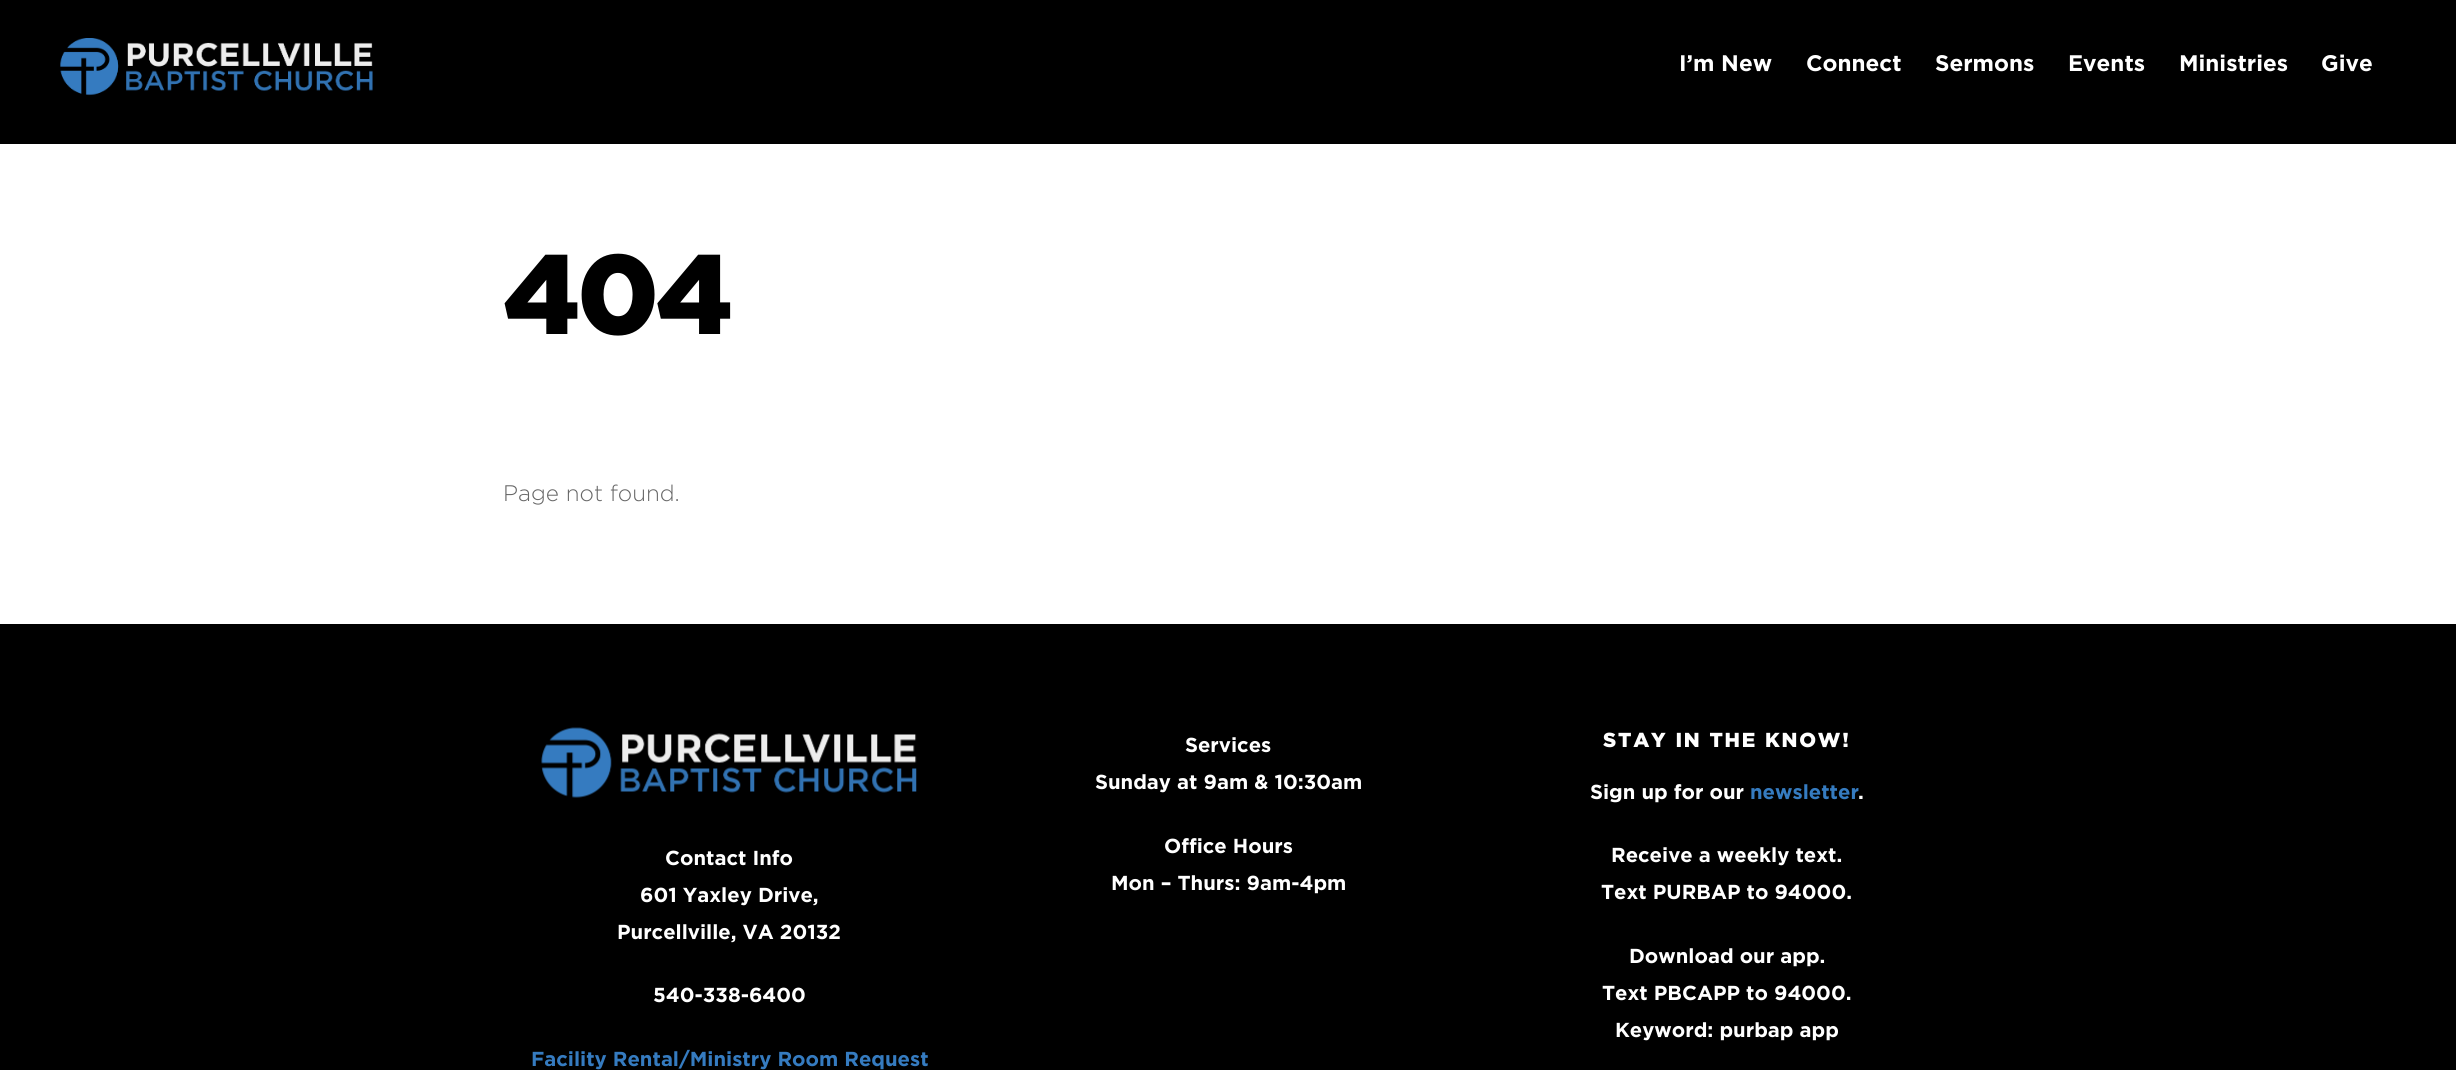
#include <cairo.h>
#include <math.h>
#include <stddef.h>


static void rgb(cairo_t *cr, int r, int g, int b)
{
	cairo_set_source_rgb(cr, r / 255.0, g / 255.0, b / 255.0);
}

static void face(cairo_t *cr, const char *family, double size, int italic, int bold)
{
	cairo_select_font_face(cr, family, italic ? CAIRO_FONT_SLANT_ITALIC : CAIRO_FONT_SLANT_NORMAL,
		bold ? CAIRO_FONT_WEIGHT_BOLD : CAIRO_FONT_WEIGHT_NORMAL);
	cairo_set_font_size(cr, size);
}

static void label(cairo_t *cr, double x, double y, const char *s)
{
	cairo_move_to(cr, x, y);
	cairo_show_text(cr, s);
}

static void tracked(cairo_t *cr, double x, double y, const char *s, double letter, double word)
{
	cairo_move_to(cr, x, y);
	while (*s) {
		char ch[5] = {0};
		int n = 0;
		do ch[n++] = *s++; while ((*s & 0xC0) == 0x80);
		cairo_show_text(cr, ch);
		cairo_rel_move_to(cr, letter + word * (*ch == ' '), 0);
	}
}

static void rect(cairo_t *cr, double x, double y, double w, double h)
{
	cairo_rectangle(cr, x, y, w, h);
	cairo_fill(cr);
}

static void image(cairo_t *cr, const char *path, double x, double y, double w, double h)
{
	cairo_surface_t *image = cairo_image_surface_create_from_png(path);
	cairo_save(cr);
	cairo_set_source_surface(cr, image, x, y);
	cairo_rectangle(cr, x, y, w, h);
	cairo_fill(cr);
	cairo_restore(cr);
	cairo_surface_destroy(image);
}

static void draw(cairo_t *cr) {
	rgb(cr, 255, 255, 255);
	cairo_paint(cr);
	rgb(cr, 0, 0, 0);
	rect(cr, 0, 0, 2456, 144);
	image(cr, "image0.png", 60, 38, 313, 58);
	face(cr, "Gotham", 22.5, 0, 1);
	rgb(cr, 255, 255, 255);
	label(cr, 1679, 71, "I’m New");
	label(cr, 1806, 71, "Connect");
	label(cr, 1935, 71, "Sermons");
	label(cr, 2068, 71, "Events");
	label(cr, 2179, 71, "Ministries");
	label(cr, 2321, 71, "Give");
	face(cr, "Gotham Black", 112.5, 0, 0);
	rgb(cr, 0, 0, 0);
	tracked(cr, 503, 334, "404", -3.5, 0);
	face(cr, "Gotham Light", 22.5, 0, 0);
	rgb(cr, 102, 102, 102);
	label(cr, 503, 501, "Page not found.");
	rgb(cr, 0, 0, 0);
	rect(cr, 0, 624, 2456, 446);
	face(cr, "Gotham", 20.25, 0, 1);
	rgb(cr, 255, 255, 255);
	label(cr, 1185, 752, "Services");
	label(cr, 1095, 789, "Sunday at 9am & 10:30am");
	label(cr, 1164, 853, "Office Hours");
	label(cr, 1111, 890, "Mon – Thurs: 9am-4pm");
	face(cr, "Gotham Black", 20.25, 0, 0);
	tracked(cr, 1603, 747, "STAY IN THE KNOW!", 1.8, 0);
	face(cr, "Gotham", 20.25, 0, 1);
	label(cr, 1590, 799, "Sign up for our");
	rgb(cr, 53, 123, 192);
	label(cr, 1750, 799, "newsletter");
	rgb(cr, 255, 255, 255);
	label(cr, 1858, 799, ".");
	label(cr, 1611, 862, "Receive a weekly text.");
	label(cr, 1601, 899, "Text PURBAP to 94000.");
	label(cr, 1629, 963, "Download our app.");
	label(cr, 1602, 1000, "Text PBCAPP to 94000.");
	label(cr, 1615, 1037, "Keyword: purbap app");
	image(cr, "image1.png", 541, 727, 376, 71);
	label(cr, 665, 865, "Contact Info");
	label(cr, 640, 902, "601 Yaxley Drive,");
	label(cr, 617, 939, "Purcellville, VA 20132");
	label(cr, 653, 1002, "540-338-6400");
	rgb(cr, 53, 123, 192);
	label(cr, 531, 1066, "Facility Rental/Ministry Room Request");
}

int main(void) {
	cairo_surface_t *surface = cairo_image_surface_create(CAIRO_FORMAT_RGB24, 2456, 1070);
	cairo_t *cr = cairo_create(surface);
	cairo_font_options_t *options = cairo_font_options_create();
	cairo_font_options_set_hint_metrics(options, CAIRO_HINT_METRICS_OFF);
	cairo_font_options_set_hint_style(options, CAIRO_HINT_STYLE_NONE);
	cairo_set_font_options(cr, options);
	cairo_set_miter_limit(cr, 4);
	draw(cr);
	cairo_surface_write_to_png(surface, "render.png");
	cairo_font_options_destroy(options);
	cairo_destroy(cr);
	cairo_surface_destroy(surface);
	return 0;
}
